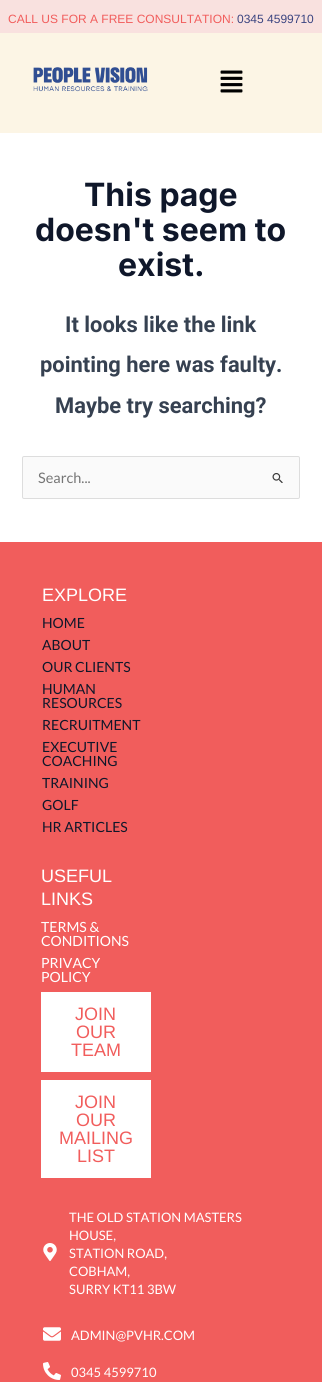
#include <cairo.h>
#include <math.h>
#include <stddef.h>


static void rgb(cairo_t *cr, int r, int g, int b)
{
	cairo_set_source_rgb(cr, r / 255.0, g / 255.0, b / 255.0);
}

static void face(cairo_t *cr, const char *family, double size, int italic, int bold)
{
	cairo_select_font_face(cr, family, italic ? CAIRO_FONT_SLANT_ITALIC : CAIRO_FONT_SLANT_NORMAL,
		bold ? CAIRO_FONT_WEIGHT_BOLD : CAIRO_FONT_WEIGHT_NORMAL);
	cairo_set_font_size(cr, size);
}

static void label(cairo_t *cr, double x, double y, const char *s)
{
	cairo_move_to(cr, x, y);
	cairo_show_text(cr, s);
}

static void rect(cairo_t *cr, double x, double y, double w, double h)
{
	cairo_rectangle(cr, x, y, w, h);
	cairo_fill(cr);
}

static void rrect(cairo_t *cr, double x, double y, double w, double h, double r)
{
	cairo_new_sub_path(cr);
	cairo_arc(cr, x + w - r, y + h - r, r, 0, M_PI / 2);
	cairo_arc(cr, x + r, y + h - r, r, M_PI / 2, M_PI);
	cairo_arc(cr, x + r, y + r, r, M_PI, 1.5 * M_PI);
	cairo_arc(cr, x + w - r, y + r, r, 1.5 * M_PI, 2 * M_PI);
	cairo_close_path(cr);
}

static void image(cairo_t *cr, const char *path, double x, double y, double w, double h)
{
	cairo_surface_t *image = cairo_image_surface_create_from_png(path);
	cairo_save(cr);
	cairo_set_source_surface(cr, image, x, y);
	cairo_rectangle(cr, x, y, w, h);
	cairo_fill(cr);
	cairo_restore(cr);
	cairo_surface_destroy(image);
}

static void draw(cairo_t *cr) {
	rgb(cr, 255, 255, 255);
	cairo_paint(cr);
	rgb(cr, 249, 225, 223);
	rect(cr, 0, 0, 322, 33);
	face(cr, "Liberation Sans", 12, 0, 0);
	rgb(cr, 241, 93, 92);
	label(cr, 8, 23, "CALL US FOR A FREE CONSULTATION:");
	rgb(cr, 60, 69, 129);
	label(cr, 237, 23, "0345 4599710");
	rgb(cr, 252, 245, 229);
	rect(cr, 0, 33, 322, 100);
	image(cr, "image0.png", 33, 67, 115, 25);
	image(cr, "image1.png", 220, 70, 23, 23);
	face(cr, "Inter", 32, 0, 1);
	rgb(cr, 15, 23, 42);
	label(cr, 84, 206, "This page");
	label(cr, 35, 241, "doesn't seem to");
	label(cr, 118, 276, "exist.");
	face(cr, "Roboto", 21.9, 0, 1);
	rgb(cr, 54, 65, 81);
	label(cr, 65, 332, "It looks like the link");
	label(cr, 40, 372, "pointing here was faulty.");
	label(cr, 55, 413, "Maybe try searching?");
	rgb(cr, 250, 250, 250);
	rrect(cr, 22.5, 456.5, 277, 42, 1.5);
	cairo_fill_preserve(cr);
	rgb(cr, 221, 221, 221);
	cairo_set_line_width(cr, 1);
	cairo_stroke(cr);
	face(cr, "Lato", 14.5, 0, 0);
	rgb(cr, 117, 117, 117);
	label(cr, 38, 483, "Search...");
	image(cr, "image2.png", 272, 473, 11, 10);
	rgb(cr, 241, 93, 92);
	rect(cr, 0, 542, 322, 840);
	face(cr, "Liberation Sans", 18, 0, 0);
	rgb(cr, 255, 255, 255);
	label(cr, 42, 601, "EXPLORE");
	face(cr, "Lato", 14, 0, 0);
	rgb(cr, 15, 23, 42);
	label(cr, 42, 628, "HOME");
	label(cr, 42, 650, "ABOUT");
	label(cr, 42, 672, "OUR CLIENTS");
	label(cr, 42, 694, "HUMAN");
	label(cr, 42, 708, "RESOURCES");
	label(cr, 42, 730, "RECRUITMENT");
	label(cr, 42, 752, "EXECUTIVE");
	label(cr, 42, 766, "COACHING");
	label(cr, 42, 788, "TRAINING");
	label(cr, 42, 810, "GOLF");
	label(cr, 42, 832, "HR ARTICLES");
	face(cr, "Liberation Sans", 18, 0, 0);
	rgb(cr, 255, 255, 255);
	label(cr, 41, 882, "USEFUL");
	label(cr, 41, 905, "LINKS");
	face(cr, "Lato", 14, 0, 0);
	label(cr, 41, 932, "TERMS &");
	label(cr, 41, 946, "CONDITIONS");
	label(cr, 41, 968, "PRIVACY");
	label(cr, 41, 982, "POLICY");
	rect(cr, 41, 992, 110, 80);
	face(cr, "Liberation Sans", 18, 0, 0);
	rgb(cr, 241, 93, 92);
	label(cr, 75, 1020, "JOIN");
	label(cr, 76, 1038, "OUR");
	label(cr, 71, 1056, "TEAM");
	rgb(cr, 255, 255, 255);
	rect(cr, 41, 1080, 110, 98);
	rgb(cr, 241, 93, 92);
	label(cr, 75, 1108, "JOIN");
	label(cr, 76, 1126, "OUR");
	label(cr, 59, 1144, "MAILING");
	label(cr, 77, 1162, "LIST");
	image(cr, "image3.png", 43, 1243, 14, 18);
	face(cr, "Lato", 13, 0, 0);
	rgb(cr, 255, 255, 255);
	label(cr, 69, 1222, "THE OLD STATION MASTERS");
	label(cr, 69, 1240, "HOUSE,");
	label(cr, 69, 1258, "STATION ROAD,");
	label(cr, 69, 1276, "COBHAM,");
	label(cr, 69, 1294, "SURRY KT11 3BW");
	image(cr, "image4.png", 43, 1327, 18, 14);
	label(cr, 71, 1340, "ADMIN@PVHR.COM");
	image(cr, "image5.png", 43, 1362, 18, 18);
	label(cr, 71, 1377, "0345 4599710");
}

int main(void) {
	cairo_surface_t *surface = cairo_image_surface_create(CAIRO_FORMAT_RGB24, 322, 1382);
	cairo_t *cr = cairo_create(surface);
	cairo_font_options_t *options = cairo_font_options_create();
	cairo_font_options_set_hint_metrics(options, CAIRO_HINT_METRICS_OFF);
	cairo_font_options_set_hint_style(options, CAIRO_HINT_STYLE_NONE);
	cairo_set_font_options(cr, options);
	cairo_set_miter_limit(cr, 4);
	draw(cr);
	cairo_surface_write_to_png(surface, "render.png");
	cairo_font_options_destroy(options);
	cairo_destroy(cr);
	cairo_surface_destroy(surface);
	return 0;
}
